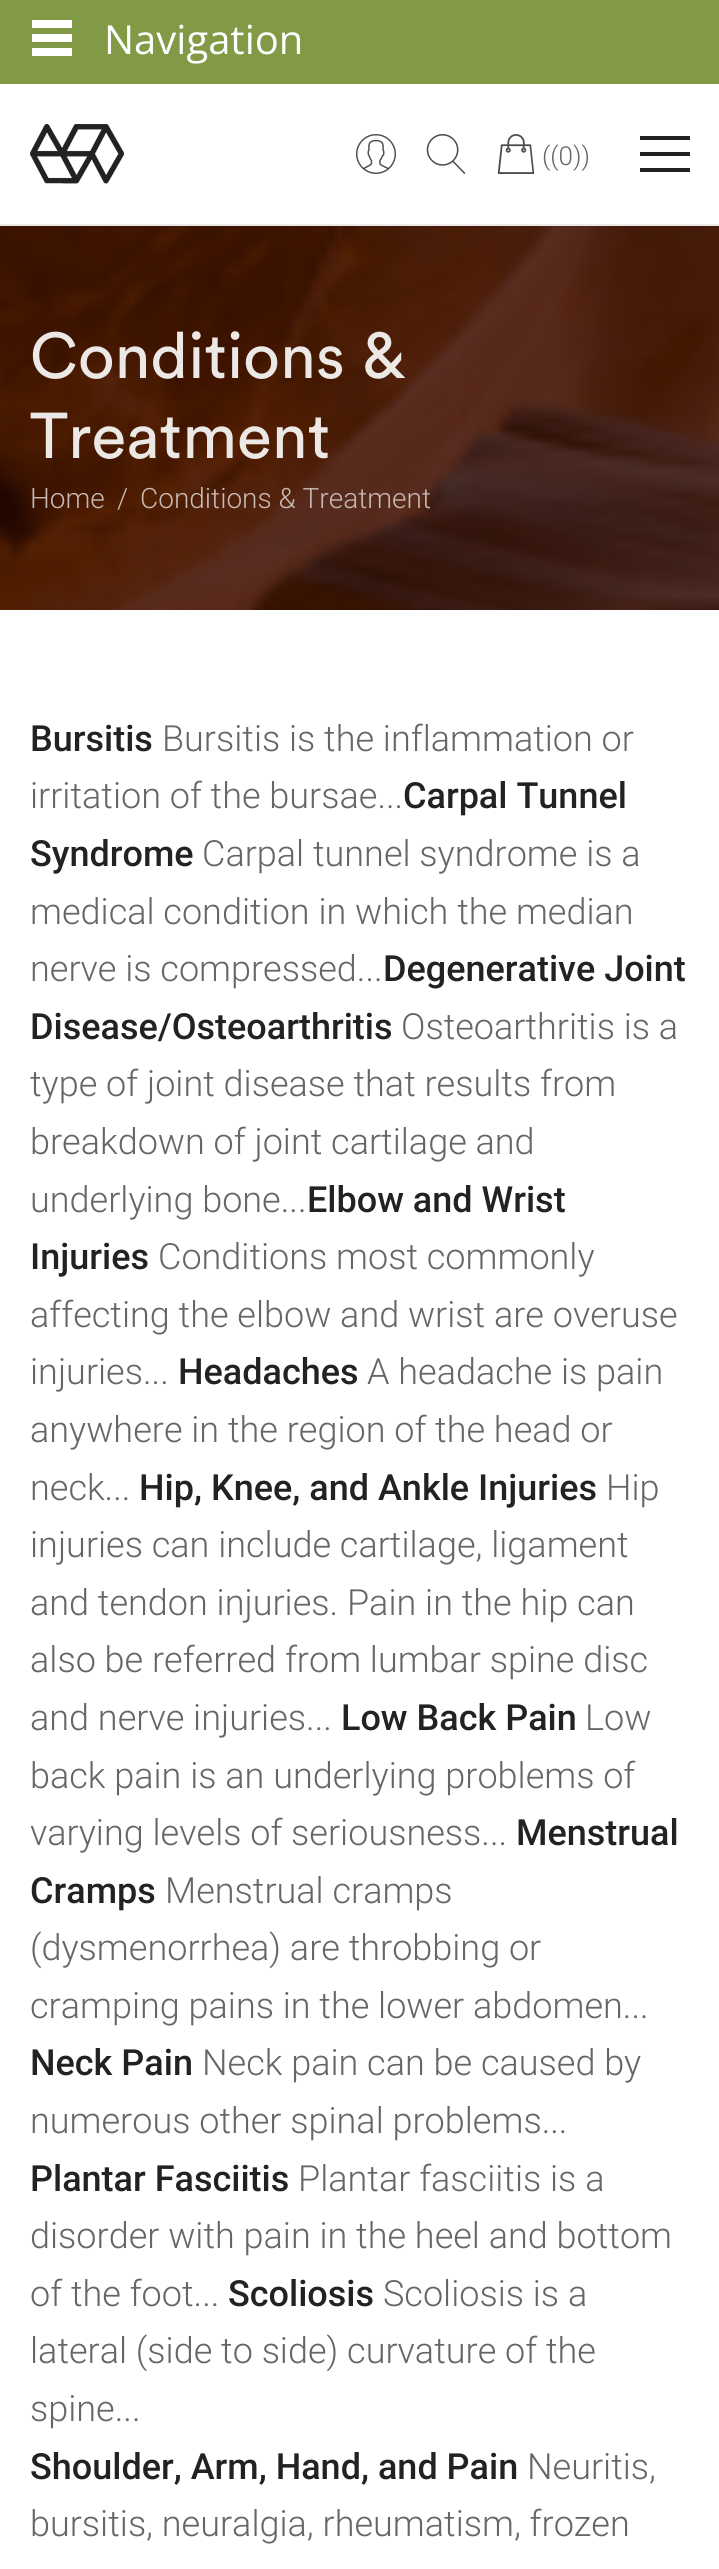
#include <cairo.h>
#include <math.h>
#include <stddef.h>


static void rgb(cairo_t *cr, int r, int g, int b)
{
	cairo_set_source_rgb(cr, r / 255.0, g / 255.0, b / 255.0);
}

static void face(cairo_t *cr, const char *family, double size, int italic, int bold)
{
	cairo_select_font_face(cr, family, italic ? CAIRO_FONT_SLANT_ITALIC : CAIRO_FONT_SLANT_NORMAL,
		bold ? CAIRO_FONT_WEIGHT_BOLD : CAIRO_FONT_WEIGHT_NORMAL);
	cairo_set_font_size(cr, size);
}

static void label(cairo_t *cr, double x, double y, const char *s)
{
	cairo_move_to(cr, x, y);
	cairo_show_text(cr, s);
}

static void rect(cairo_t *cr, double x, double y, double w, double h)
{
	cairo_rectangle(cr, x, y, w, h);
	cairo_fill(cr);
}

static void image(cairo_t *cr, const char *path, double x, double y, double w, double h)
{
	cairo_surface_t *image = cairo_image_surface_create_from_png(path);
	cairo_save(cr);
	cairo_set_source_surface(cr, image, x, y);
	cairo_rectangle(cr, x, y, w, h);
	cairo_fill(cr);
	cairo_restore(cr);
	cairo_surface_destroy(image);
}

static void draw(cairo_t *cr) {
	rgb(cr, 255, 255, 255);
	cairo_paint(cr);
	rgb(cr, 130, 154, 70);
	rect(cr, 0, 0, 719, 84);
	rgb(cr, 255, 255, 255);
	rect(cr, 32, 20, 40, 8);
	rect(cr, 32, 34, 40, 8);
	rect(cr, 32, 48, 40, 8);
	face(cr, "Open Sans", 40, 0, 0);
	label(cr, 104, 54, "Navigation");
	rgb(cr, 234, 234, 234);
	rect(cr, 0, 224, 719, 2);
	image(cr, "image0.png", 30, 124, 94, 60);
	image(cr, "image1.png", 356, 134, 40, 40);
	image(cr, "image2.png", 426, 134, 40, 40);
	image(cr, "image3.png", 497, 134, 38, 40);
	face(cr, "Roboto Light", 26, 0, 0);
	rgb(cr, 102, 102, 102);
	label(cr, 542, 165, "((0))");
	rgb(cr, 34, 34, 34);
	rect(cr, 640, 152, 50, 4);
	rect(cr, 640, 136, 50, 4);
	rect(cr, 640, 168, 50, 4);
	image(cr, "image4.png", 0, 226, 719, 384);
	face(cr, "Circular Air", 64, 0, 0);
	rgb(cr, 236, 232, 230);
	label(cr, 30, 378, "Conditions &");
	label(cr, 30, 458, "Treatment");
	face(cr, "Roboto Light", 28, 0, 0);
	rgb(cr, 198, 185, 179);
	label(cr, 30, 508, "Home");
	label(cr, 117, 508, "/");
	label(cr, 140, 508, "Conditions & Treatment");
	face(cr, "Roboto Medium", 36, 0, 0);
	rgb(cr, 34, 34, 34);
	label(cr, 30, 751, "Bursitis");
	face(cr, "Roboto Light", 36, 0, 0);
	rgb(cr, 102, 102, 102);
	label(cr, 162, 751, "Bursitis is the inflammation or");
	label(cr, 30, 808, "irritation of the bursae...");
	face(cr, "Roboto Medium", 36, 0, 0);
	rgb(cr, 34, 34, 34);
	label(cr, 403, 808, "Carpal Tunnel");
	label(cr, 30, 866, "Syndrome");
	face(cr, "Roboto Light", 36, 0, 0);
	rgb(cr, 102, 102, 102);
	label(cr, 202, 866, "Carpal tunnel syndrome is a");
	label(cr, 30, 924, "medical condition in which the median");
	label(cr, 30, 981, "nerve is compressed...");
	face(cr, "Roboto Medium", 36, 0, 0);
	rgb(cr, 34, 34, 34);
	label(cr, 383, 981, "Degenerative Joint");
	label(cr, 30, 1039, "Disease/Osteoarthritis");
	face(cr, "Roboto Light", 36, 0, 0);
	rgb(cr, 102, 102, 102);
	label(cr, 401, 1039, "Osteoarthritis is a");
	label(cr, 30, 1096, "type of joint disease that results from");
	label(cr, 30, 1154, "breakdown of joint cartilage and");
	label(cr, 30, 1212, "underlying bone...");
	face(cr, "Roboto Medium", 36, 0, 0);
	rgb(cr, 34, 34, 34);
	label(cr, 307, 1212, "Elbow and Wrist");
	label(cr, 30, 1269, "Injuries");
	face(cr, "Roboto Light", 36, 0, 0);
	rgb(cr, 102, 102, 102);
	label(cr, 158, 1269, "Conditions most commonly");
	label(cr, 30, 1327, "affecting the elbow and wrist are overuse");
	label(cr, 30, 1384, "injuries...");
	face(cr, "Roboto Medium", 36, 0, 0);
	rgb(cr, 34, 34, 34);
	label(cr, 178, 1384, "Headaches");
	face(cr, "Roboto Light", 36, 0, 0);
	rgb(cr, 102, 102, 102);
	label(cr, 367, 1384, "A headache is pain");
	label(cr, 30, 1442, "anywhere in the region of the head or");
	label(cr, 30, 1500, "neck...");
	face(cr, "Roboto Medium", 36, 0, 0);
	rgb(cr, 34, 34, 34);
	label(cr, 139, 1500, "Hip, Knee, and Ankle Injuries");
	face(cr, "Roboto Light", 36, 0, 0);
	rgb(cr, 102, 102, 102);
	label(cr, 606, 1500, "Hip");
	label(cr, 30, 1557, "injuries can include cartilage, ligament");
	label(cr, 30, 1615, "and tendon injuries. Pain in the hip can");
	label(cr, 30, 1672, "also be referred from lumbar spine disc");
	label(cr, 30, 1730, "and nerve injuries...");
	face(cr, "Roboto Medium", 36, 0, 0);
	rgb(cr, 34, 34, 34);
	label(cr, 341, 1730, "Low Back Pain");
	face(cr, "Roboto Light", 36, 0, 0);
	rgb(cr, 102, 102, 102);
	label(cr, 585, 1730, "Low");
	label(cr, 30, 1788, "back pain is an underlying problems of");
	label(cr, 30, 1845, "varying levels of seriousness...");
	face(cr, "Roboto Medium", 36, 0, 0);
	rgb(cr, 34, 34, 34);
	label(cr, 516, 1845, "Menstrual");
	label(cr, 30, 1903, "Cramps");
	face(cr, "Roboto Light", 36, 0, 0);
	rgb(cr, 102, 102, 102);
	label(cr, 165, 1903, "Menstrual cramps");
	label(cr, 30, 1960, "(dysmenorrhea) are throbbing or");
	label(cr, 30, 2018, "cramping pains in the lower abdomen...");
	face(cr, "Roboto Medium", 36, 0, 0);
	rgb(cr, 34, 34, 34);
	label(cr, 30, 2075, "Neck Pain");
	face(cr, "Roboto Light", 36, 0, 0);
	rgb(cr, 102, 102, 102);
	label(cr, 202, 2075, "Neck pain can be caused by");
	label(cr, 30, 2133, "numerous other spinal problems...");
	face(cr, "Roboto Medium", 36, 0, 0);
	rgb(cr, 34, 34, 34);
	label(cr, 30, 2191, "Plantar Fasciitis");
	face(cr, "Roboto Light", 36, 0, 0);
	rgb(cr, 102, 102, 102);
	label(cr, 298, 2191, "Plantar fasciitis is a");
	label(cr, 30, 2248, "disorder with pain in the heel and bottom");
	label(cr, 30, 2306, "of the foot...");
	face(cr, "Roboto Medium", 36, 0, 0);
	rgb(cr, 34, 34, 34);
	label(cr, 228, 2306, "Scoliosis");
	face(cr, "Roboto Light", 36, 0, 0);
	rgb(cr, 102, 102, 102);
	label(cr, 383, 2306, "Scoliosis is a");
	label(cr, 30, 2363, "lateral (side to side) curvature of the");
	label(cr, 30, 2421, "spine...");
	face(cr, "Roboto Medium", 36, 0, 0);
	rgb(cr, 34, 34, 34);
	label(cr, 30, 2479, "Shoulder, Arm, Hand, and Pain");
	face(cr, "Roboto Light", 36, 0, 0);
	rgb(cr, 102, 102, 102);
	label(cr, 527, 2479, "Neuritis,");
	label(cr, 30, 2536, "bursitis, neuralgia, rheumatism, frozen");
}

int main(void) {
	cairo_surface_t *surface = cairo_image_surface_create(CAIRO_FORMAT_RGB24, 719, 2569);
	cairo_t *cr = cairo_create(surface);
	cairo_font_options_t *options = cairo_font_options_create();
	cairo_font_options_set_hint_metrics(options, CAIRO_HINT_METRICS_OFF);
	cairo_font_options_set_hint_style(options, CAIRO_HINT_STYLE_NONE);
	cairo_set_font_options(cr, options);
	cairo_set_miter_limit(cr, 4);
	draw(cr);
	cairo_surface_write_to_png(surface, "render.png");
	cairo_font_options_destroy(options);
	cairo_destroy(cr);
	cairo_surface_destroy(surface);
	return 0;
}
